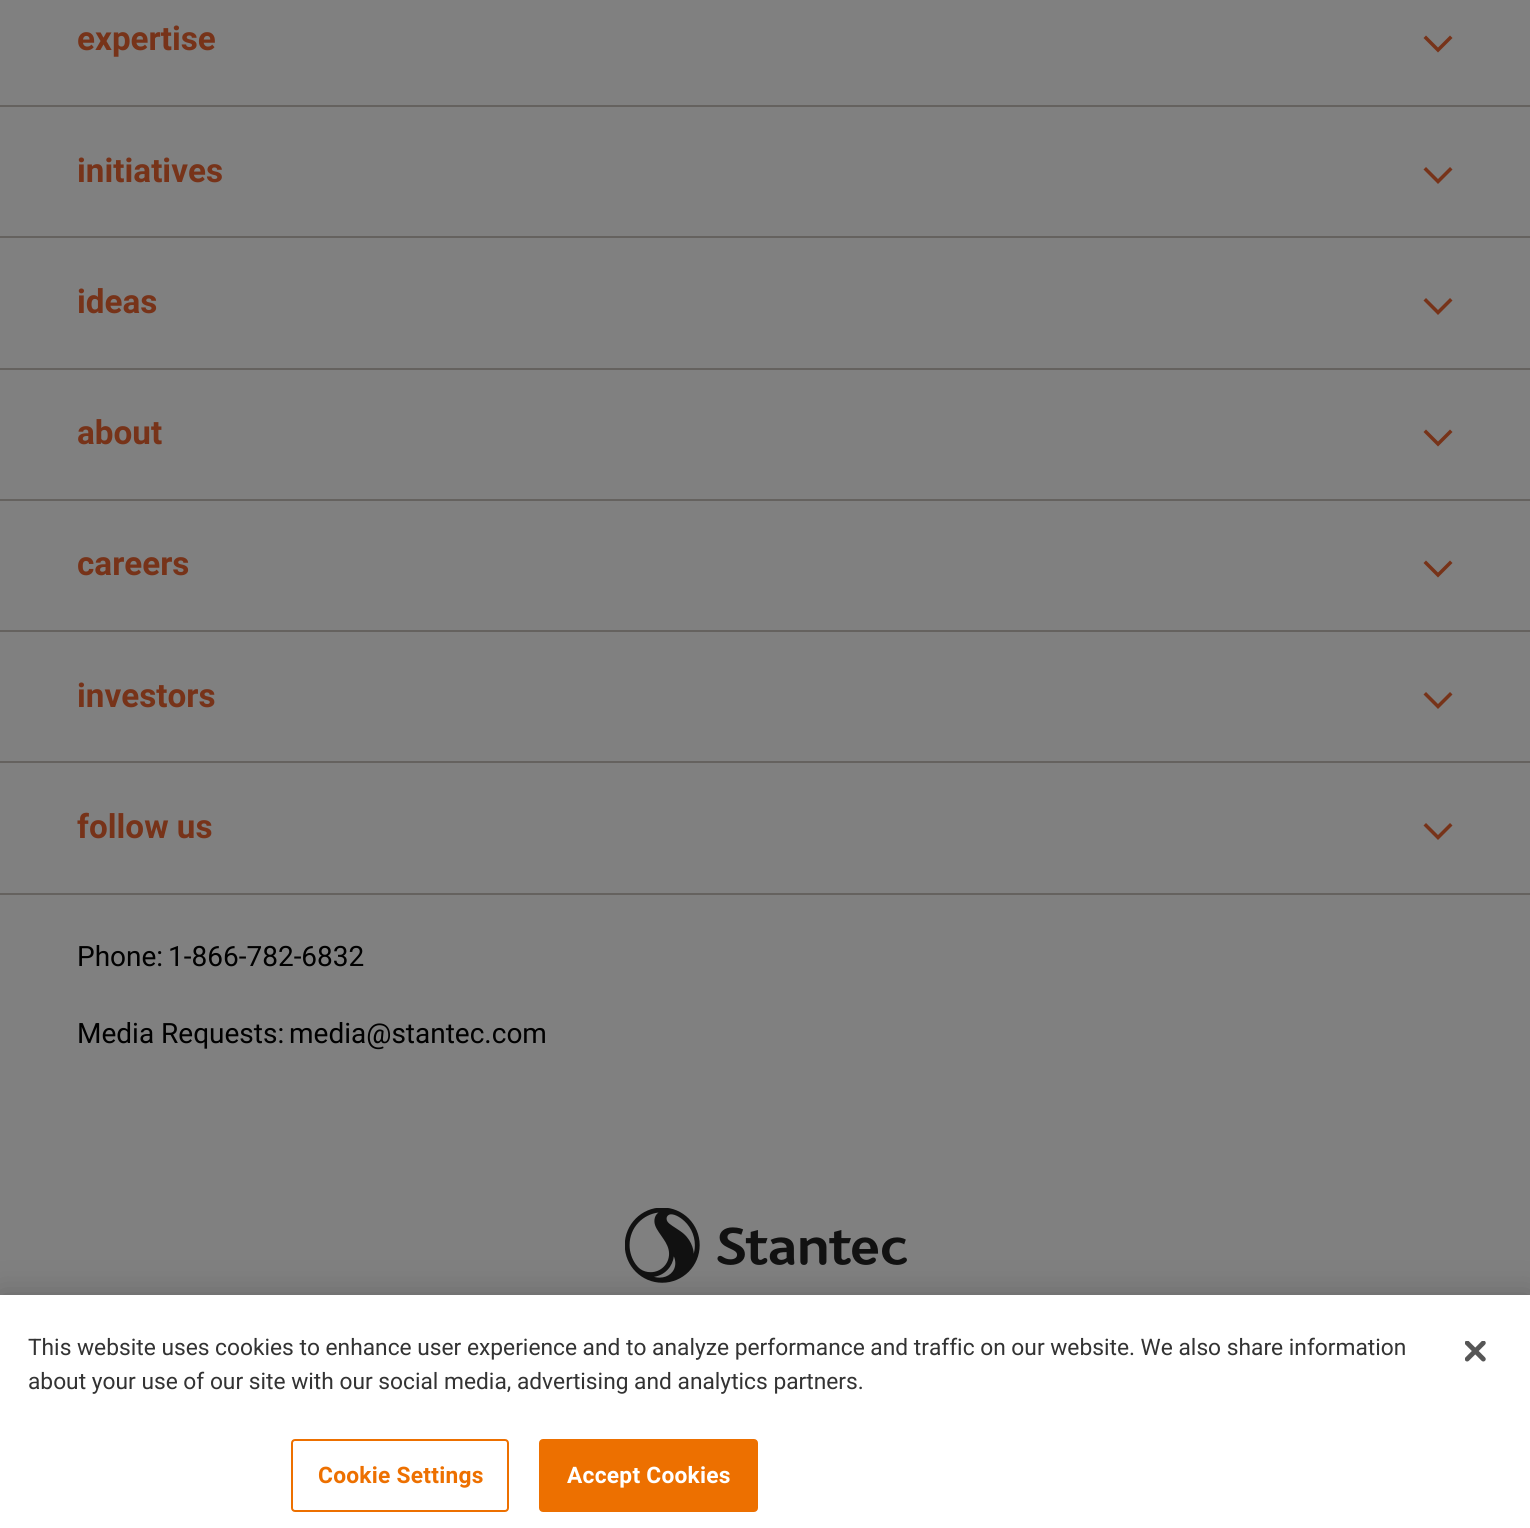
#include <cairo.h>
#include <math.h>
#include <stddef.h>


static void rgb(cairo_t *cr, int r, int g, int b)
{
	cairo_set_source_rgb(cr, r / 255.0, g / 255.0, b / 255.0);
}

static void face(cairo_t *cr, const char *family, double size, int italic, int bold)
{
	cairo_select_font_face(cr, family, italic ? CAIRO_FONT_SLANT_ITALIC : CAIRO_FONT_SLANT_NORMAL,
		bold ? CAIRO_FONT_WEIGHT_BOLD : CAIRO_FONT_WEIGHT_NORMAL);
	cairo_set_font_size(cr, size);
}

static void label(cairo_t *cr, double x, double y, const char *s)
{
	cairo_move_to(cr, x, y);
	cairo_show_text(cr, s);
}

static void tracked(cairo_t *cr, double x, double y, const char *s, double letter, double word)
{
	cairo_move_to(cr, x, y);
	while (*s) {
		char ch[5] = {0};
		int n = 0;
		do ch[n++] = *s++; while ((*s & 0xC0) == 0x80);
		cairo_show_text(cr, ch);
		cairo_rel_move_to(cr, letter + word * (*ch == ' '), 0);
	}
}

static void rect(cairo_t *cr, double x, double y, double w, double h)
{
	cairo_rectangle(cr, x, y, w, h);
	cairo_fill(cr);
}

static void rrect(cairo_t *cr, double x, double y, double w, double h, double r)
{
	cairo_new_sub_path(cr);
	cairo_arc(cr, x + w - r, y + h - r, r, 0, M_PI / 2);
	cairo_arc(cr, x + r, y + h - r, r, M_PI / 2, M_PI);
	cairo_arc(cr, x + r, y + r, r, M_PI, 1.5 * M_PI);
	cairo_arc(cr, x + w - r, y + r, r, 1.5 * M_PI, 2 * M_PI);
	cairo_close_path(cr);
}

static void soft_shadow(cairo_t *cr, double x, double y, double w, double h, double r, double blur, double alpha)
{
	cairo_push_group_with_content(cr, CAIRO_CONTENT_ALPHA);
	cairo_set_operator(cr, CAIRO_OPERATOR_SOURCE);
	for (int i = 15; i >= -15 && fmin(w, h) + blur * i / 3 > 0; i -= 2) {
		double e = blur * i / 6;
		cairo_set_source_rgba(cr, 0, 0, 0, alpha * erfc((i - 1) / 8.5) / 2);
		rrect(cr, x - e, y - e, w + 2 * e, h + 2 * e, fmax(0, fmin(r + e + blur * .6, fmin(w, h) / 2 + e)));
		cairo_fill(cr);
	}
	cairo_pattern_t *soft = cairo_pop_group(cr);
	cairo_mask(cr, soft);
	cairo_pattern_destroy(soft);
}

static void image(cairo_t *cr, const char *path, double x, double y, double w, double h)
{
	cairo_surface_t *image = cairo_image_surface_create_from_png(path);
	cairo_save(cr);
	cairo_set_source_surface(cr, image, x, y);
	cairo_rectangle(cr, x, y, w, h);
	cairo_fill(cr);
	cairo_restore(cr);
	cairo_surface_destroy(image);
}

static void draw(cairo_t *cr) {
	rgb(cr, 128, 128, 128);
	cairo_paint(cr);
	rgb(cr, 101, 98, 95);
	rect(cr, 0, 105, 1530, 2);
	face(cr, "Roboto", 33.25, 0, 1);
	rgb(cr, 119, 51, 25);
	label(cr, 77, 50, "expertise");
	cairo_new_path(cr);
	cairo_move_to(cr, 1423.5, 38);
	cairo_line_to(cr, 1426, 35.5);
	cairo_line_to(cr, 1438, 47.5);
	cairo_line_to(cr, 1450, 35.5);
	cairo_line_to(cr, 1452.5, 38);
	cairo_line_to(cr, 1438, 52.5);
	cairo_close_path(cr);
	cairo_fill(cr);
	rgb(cr, 101, 98, 95);
	rect(cr, 0, 236, 1530, 2);
	rgb(cr, 119, 51, 25);
	label(cr, 77, 182, "initiatives");
	cairo_new_path(cr);
	cairo_move_to(cr, 1423.5, 169.5);
	cairo_line_to(cr, 1426, 167);
	cairo_line_to(cr, 1438, 179);
	cairo_line_to(cr, 1450, 167);
	cairo_line_to(cr, 1452.5, 169.5);
	cairo_line_to(cr, 1438, 184);
	cairo_close_path(cr);
	cairo_fill(cr);
	rgb(cr, 101, 98, 95);
	rect(cr, 0, 368, 1530, 2);
	rgb(cr, 119, 51, 25);
	label(cr, 77, 313, "ideas");
	cairo_new_path(cr);
	cairo_move_to(cr, 1423.5, 300.5);
	cairo_line_to(cr, 1426, 298);
	cairo_line_to(cr, 1438, 310);
	cairo_line_to(cr, 1450, 298);
	cairo_line_to(cr, 1452.5, 300.5);
	cairo_line_to(cr, 1438, 315);
	cairo_close_path(cr);
	cairo_fill(cr);
	rgb(cr, 101, 98, 95);
	rect(cr, 0, 499, 1530, 2);
	rgb(cr, 119, 51, 25);
	label(cr, 77, 444, "about");
	cairo_new_path(cr);
	cairo_move_to(cr, 1423.5, 432);
	cairo_line_to(cr, 1426, 429.5);
	cairo_line_to(cr, 1438, 441.5);
	cairo_line_to(cr, 1450, 429.5);
	cairo_line_to(cr, 1452.5, 432);
	cairo_line_to(cr, 1438, 446.5);
	cairo_close_path(cr);
	cairo_fill(cr);
	rgb(cr, 101, 98, 95);
	rect(cr, 0, 630, 1530, 2);
	rgb(cr, 119, 51, 25);
	label(cr, 77, 575, "careers");
	cairo_new_path(cr);
	cairo_move_to(cr, 1423.5, 563);
	cairo_line_to(cr, 1426, 560.5);
	cairo_line_to(cr, 1438, 572.5);
	cairo_line_to(cr, 1450, 560.5);
	cairo_line_to(cr, 1452.5, 563);
	cairo_line_to(cr, 1438, 577.5);
	cairo_close_path(cr);
	cairo_fill(cr);
	rgb(cr, 101, 98, 95);
	rect(cr, 0, 761, 1530, 2);
	rgb(cr, 119, 51, 25);
	label(cr, 77, 707, "investors");
	cairo_new_path(cr);
	cairo_move_to(cr, 1423.5, 694.5);
	cairo_line_to(cr, 1426, 692);
	cairo_line_to(cr, 1438, 704);
	cairo_line_to(cr, 1450, 692);
	cairo_line_to(cr, 1452.5, 694.5);
	cairo_line_to(cr, 1438, 709);
	cairo_close_path(cr);
	cairo_fill(cr);
	rgb(cr, 101, 98, 95);
	rect(cr, 0, 893, 1530, 2);
	rgb(cr, 119, 51, 25);
	label(cr, 77, 838, "follow us");
	cairo_new_path(cr);
	cairo_move_to(cr, 1423.5, 825.5);
	cairo_line_to(cr, 1426, 823);
	cairo_line_to(cr, 1438, 835);
	cairo_line_to(cr, 1450, 823);
	cairo_line_to(cr, 1452.5, 825.5);
	cairo_line_to(cr, 1438, 840);
	cairo_close_path(cr);
	cairo_fill(cr);
	face(cr, "Roboto", 28, 0, 0);
	rgb(cr, 0, 0, 0);
	label(cr, 77, 966, "Phone:");
	label(cr, 168, 966, "1-866-782-6832");
	label(cr, 77, 1043, "Media Requests:");
	label(cr, 289, 1043, "media@stantec.com");
	image(cr, "image0.png", 625, 1208, 282, 75);
	rgb(cr, 0, 0, 0);
	soft_shadow(cr, 0, 1295, 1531, 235, 0, 16, 0.2);
	rgb(cr, 255, 255, 255);
	rect(cr, 0, 1295, 1530, 233);
	face(cr, "Roboto", 22.75, 0, 0);
	rgb(cr, 51, 51, 51);
	label(cr, 28, 1355, "This website uses cookies to enhance user experience and to analyze performance and traffic on our website. We also share information");
	label(cr, 28, 1389, "about your use of our site with our social media, advertising and analytics partners.");
	rrect(cr, 292, 1440, 216, 71, 3);
	rgb(cr, 237, 112, 0);
	cairo_stroke(cr);
	face(cr, "Roboto", 22.75, 0, 1);
	tracked(cr, 318, 1483, "Cookie Settings", 0.25, 0);
	rrect(cr, 540, 1440, 217, 71, 3);
	cairo_fill_preserve(cr);
	cairo_stroke(cr);
	rgb(cr, 255, 255, 255);
	tracked(cr, 567, 1483, "Accept Cookies", 0.25, 0);
	image(cr, "image1.png", 1465, 1341, 21, 21);
}

int main(void) {
	cairo_surface_t *surface = cairo_image_surface_create(CAIRO_FORMAT_RGB24, 1530, 1528);
	cairo_t *cr = cairo_create(surface);
	cairo_font_options_t *options = cairo_font_options_create();
	cairo_font_options_set_hint_metrics(options, CAIRO_HINT_METRICS_OFF);
	cairo_font_options_set_hint_style(options, CAIRO_HINT_STYLE_NONE);
	cairo_set_font_options(cr, options);
	cairo_set_miter_limit(cr, 4);
	draw(cr);
	cairo_surface_write_to_png(surface, "render.png");
	cairo_font_options_destroy(options);
	cairo_destroy(cr);
	cairo_surface_destroy(surface);
	return 0;
}
